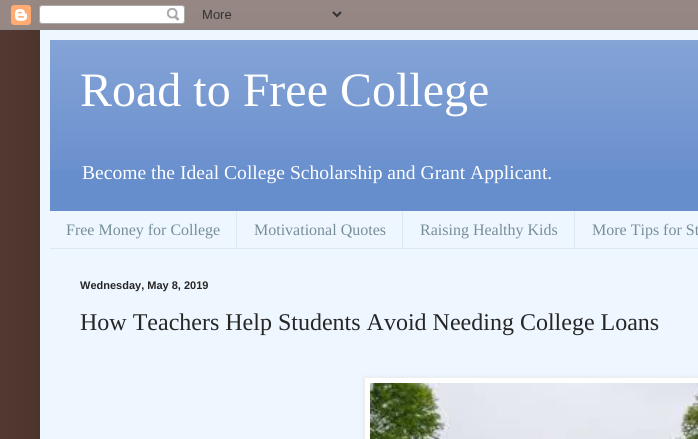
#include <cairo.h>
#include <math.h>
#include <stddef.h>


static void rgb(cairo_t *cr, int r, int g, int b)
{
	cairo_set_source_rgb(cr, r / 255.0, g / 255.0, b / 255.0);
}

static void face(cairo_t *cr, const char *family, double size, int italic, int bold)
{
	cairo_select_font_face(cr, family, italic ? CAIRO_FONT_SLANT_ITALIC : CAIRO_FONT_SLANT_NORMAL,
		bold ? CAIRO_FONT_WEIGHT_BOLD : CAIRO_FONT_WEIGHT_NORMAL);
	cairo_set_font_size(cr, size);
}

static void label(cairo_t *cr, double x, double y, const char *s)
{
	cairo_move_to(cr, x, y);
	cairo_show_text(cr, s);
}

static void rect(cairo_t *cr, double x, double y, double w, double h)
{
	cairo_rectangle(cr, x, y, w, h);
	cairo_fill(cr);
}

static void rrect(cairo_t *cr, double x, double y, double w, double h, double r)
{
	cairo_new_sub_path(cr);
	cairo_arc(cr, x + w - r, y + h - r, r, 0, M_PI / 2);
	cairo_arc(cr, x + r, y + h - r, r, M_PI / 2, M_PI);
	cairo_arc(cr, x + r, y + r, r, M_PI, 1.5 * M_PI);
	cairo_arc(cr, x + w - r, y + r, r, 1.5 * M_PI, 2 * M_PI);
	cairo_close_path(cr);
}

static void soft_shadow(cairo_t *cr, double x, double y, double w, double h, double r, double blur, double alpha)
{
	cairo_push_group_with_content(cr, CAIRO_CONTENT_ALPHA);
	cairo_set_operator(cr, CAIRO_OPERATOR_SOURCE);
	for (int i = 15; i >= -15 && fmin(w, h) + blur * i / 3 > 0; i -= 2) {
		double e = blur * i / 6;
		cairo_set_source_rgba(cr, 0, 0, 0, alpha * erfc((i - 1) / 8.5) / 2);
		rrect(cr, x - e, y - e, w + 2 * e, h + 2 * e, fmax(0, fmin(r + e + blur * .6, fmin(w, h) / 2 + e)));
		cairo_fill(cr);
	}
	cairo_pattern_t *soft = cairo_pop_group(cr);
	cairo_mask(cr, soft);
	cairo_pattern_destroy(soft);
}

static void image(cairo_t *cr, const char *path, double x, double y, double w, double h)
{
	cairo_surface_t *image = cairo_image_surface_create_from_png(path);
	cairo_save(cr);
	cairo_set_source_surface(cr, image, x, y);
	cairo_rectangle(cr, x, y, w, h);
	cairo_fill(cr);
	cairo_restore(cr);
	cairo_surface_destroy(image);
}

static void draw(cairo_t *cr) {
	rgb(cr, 81, 56, 49);
	cairo_paint(cr);
	rgb(cr, 0, 0, 0);
	soft_shadow(cr, 40, 30, 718, 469, 0, 20, 0.15);
	image(cr, "image0.png", 0, 0, 698, 30);
	rgb(cr, 238, 247, 255);
	rect(cr, 40, 30, 658, 409);
	rgb(cr, 102, 141, 204);
	rect(cr, 50, 40, 648, 171);
	image(cr, "image1.png", 50, 40, 648, 130);
	face(cr, "Liberation Serif", 48, 0, 0);
	rgb(cr, 255, 255, 255);
	label(cr, 80, 106, "Road to Free College");
	face(cr, "Liberation Serif", 19.6, 0, 0);
	label(cr, 82, 179, "Become the Ideal College Scholarship and Grant Applicant.");
	rgb(cr, 221, 233, 238);
	rect(cr, 50, 248, 648, 1);
	rect(cr, 236, 211, 1, 37);
	face(cr, "Liberation Serif", 16, 0, 0);
	rgb(cr, 119, 142, 153);
	label(cr, 66, 235, "Free Money for College");
	rgb(cr, 221, 233, 238);
	rect(cr, 402, 211, 1, 37);
	rgb(cr, 119, 142, 153);
	label(cr, 254, 235, "Motivational Quotes");
	rgb(cr, 221, 233, 238);
	rect(cr, 574, 211, 1, 37);
	rgb(cr, 119, 142, 153);
	label(cr, 420, 235, "Raising Healthy Kids");
	label(cr, 592, 235, "More Tips for St");
	face(cr, "Liberation Sans", 11, 0, 1);
	rgb(cr, 38, 38, 38);
	label(cr, 80, 289, "Wednesday, May 8, 2019");
	face(cr, "Liberation Serif", 24, 0, 0);
	label(cr, 80, 330, "How Teachers Help Students Avoid Needing College Loans");
	rgb(cr, 0, 0, 0);
	soft_shadow(cr, 365, 378, 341, 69, 0, 2.5, 0.1);
	rgb(cr, 255, 255, 255);
	cairo_rectangle(cr, 364.5, 377.5, 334, 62);
	cairo_fill_preserve(cr);
	rgb(cr, 238, 238, 238);
	cairo_set_line_width(cr, 1);
	cairo_stroke(cr);
	image(cr, "image2.png", 370, 383, 328, 56);
}

int main(void) {
	cairo_surface_t *surface = cairo_image_surface_create(CAIRO_FORMAT_RGB24, 698, 439);
	cairo_t *cr = cairo_create(surface);
	cairo_font_options_t *options = cairo_font_options_create();
	cairo_font_options_set_hint_metrics(options, CAIRO_HINT_METRICS_OFF);
	cairo_font_options_set_hint_style(options, CAIRO_HINT_STYLE_NONE);
	cairo_set_font_options(cr, options);
	cairo_set_miter_limit(cr, 4);
	draw(cr);
	cairo_surface_write_to_png(surface, "render.png");
	cairo_font_options_destroy(options);
	cairo_destroy(cr);
	cairo_surface_destroy(surface);
	return 0;
}
